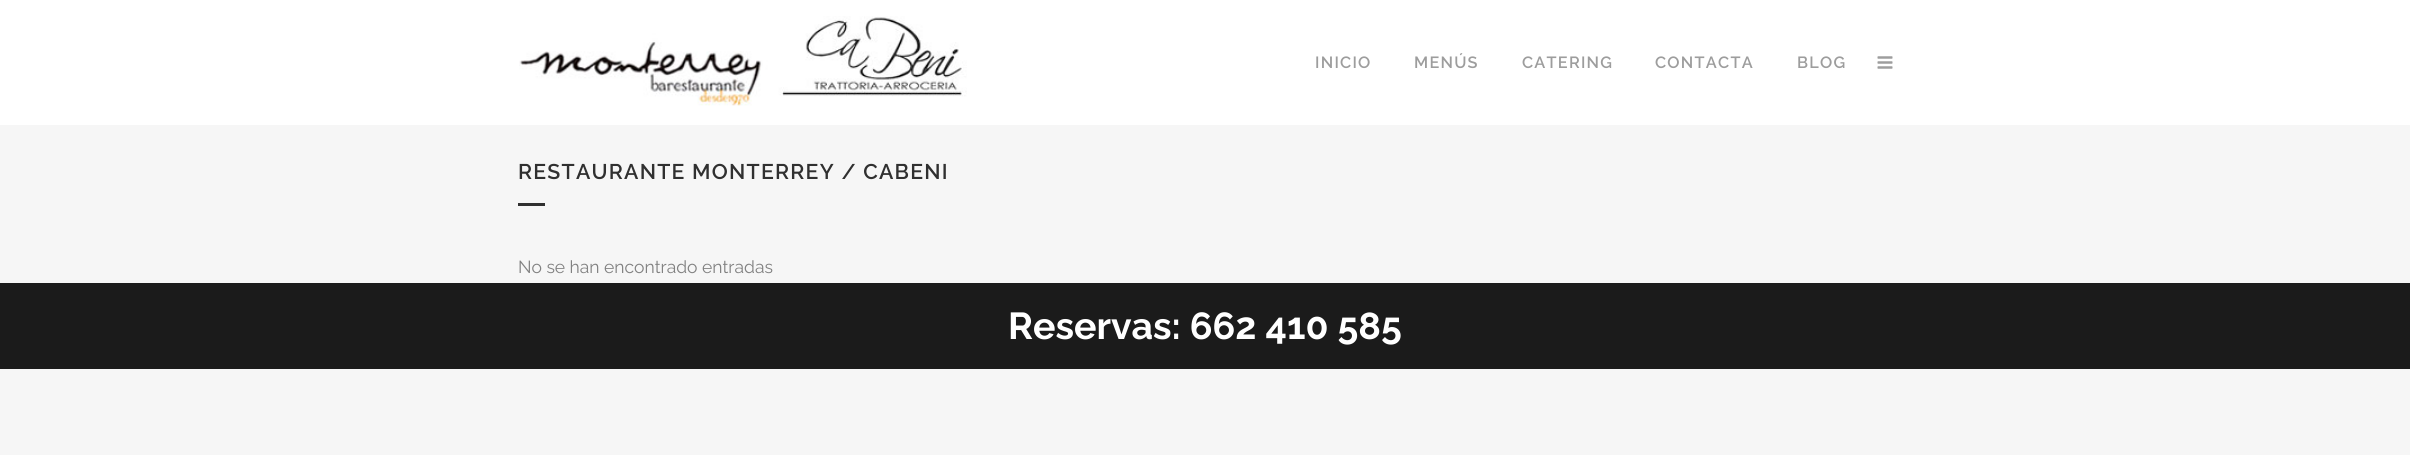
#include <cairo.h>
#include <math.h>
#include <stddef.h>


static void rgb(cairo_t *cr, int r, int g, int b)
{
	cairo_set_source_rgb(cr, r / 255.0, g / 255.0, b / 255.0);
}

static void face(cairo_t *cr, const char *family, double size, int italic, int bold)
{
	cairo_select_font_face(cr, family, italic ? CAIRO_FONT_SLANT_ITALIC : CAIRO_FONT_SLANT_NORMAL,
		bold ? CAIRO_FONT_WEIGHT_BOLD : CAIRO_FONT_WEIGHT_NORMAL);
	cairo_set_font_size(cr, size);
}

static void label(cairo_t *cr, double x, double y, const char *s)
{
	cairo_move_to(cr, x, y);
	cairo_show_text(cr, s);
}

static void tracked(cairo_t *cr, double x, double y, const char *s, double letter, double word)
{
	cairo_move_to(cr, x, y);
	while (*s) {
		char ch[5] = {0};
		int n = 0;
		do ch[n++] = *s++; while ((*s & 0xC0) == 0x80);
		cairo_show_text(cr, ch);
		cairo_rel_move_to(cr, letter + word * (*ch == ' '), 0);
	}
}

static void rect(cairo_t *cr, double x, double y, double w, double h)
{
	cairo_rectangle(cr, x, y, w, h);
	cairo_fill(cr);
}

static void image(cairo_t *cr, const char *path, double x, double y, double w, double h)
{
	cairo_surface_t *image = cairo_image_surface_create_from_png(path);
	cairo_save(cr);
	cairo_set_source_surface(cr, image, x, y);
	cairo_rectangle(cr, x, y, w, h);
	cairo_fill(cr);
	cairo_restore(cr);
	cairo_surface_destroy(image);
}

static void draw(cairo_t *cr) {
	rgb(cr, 246, 246, 246);
	cairo_paint(cr);
	rgb(cr, 255, 255, 255);
	rect(cr, 0, 0, 2410, 125);
	image(cr, "image0.png", 519, 16, 448, 90);
	face(cr, "Raleway SemiBold", 16.25, 0, 0);
	rgb(cr, 157, 157, 157);
	tracked(cr, 1315, 68, "INICIO", 1.25, 0);
	tracked(cr, 1414, 68, "MENÚS", 1.25, 0);
	tracked(cr, 1522, 68, "CATERING", 1.25, 0);
	tracked(cr, 1655, 68, "CONTACTA", 1.25, 0);
	tracked(cr, 1797, 68, "BLOG", 1.25, 0);
	image(cr, "image1.png", 1877, 56, 16, 13);
	face(cr, "Raleway SemiBold", 21.25, 0, 0);
	rgb(cr, 48, 48, 48);
	tracked(cr, 518, 179, "RESTAURANTE MONTERREY / CABENI", 1.25, 0);
	rect(cr, 518, 203, 27, 3);
	face(cr, "Raleway", 17.5, 0, 0);
	rgb(cr, 129, 129, 129);
	label(cr, 518, 273, "No se han encontrado entradas");
	rgb(cr, 27, 27, 27);
	rect(cr, 0, 283, 2410, 86);
	face(cr, "Raleway", 37.5, 0, 1);
	rgb(cr, 255, 255, 255);
	label(cr, 1008, 339, "Reservas: 662 410 585");
}

int main(void) {
	cairo_surface_t *surface = cairo_image_surface_create(CAIRO_FORMAT_RGB24, 2410, 455);
	cairo_t *cr = cairo_create(surface);
	cairo_font_options_t *options = cairo_font_options_create();
	cairo_font_options_set_hint_metrics(options, CAIRO_HINT_METRICS_OFF);
	cairo_font_options_set_hint_style(options, CAIRO_HINT_STYLE_NONE);
	cairo_set_font_options(cr, options);
	cairo_set_miter_limit(cr, 4);
	draw(cr);
	cairo_surface_write_to_png(surface, "render.png");
	cairo_font_options_destroy(options);
	cairo_destroy(cr);
	cairo_surface_destroy(surface);
	return 0;
}
